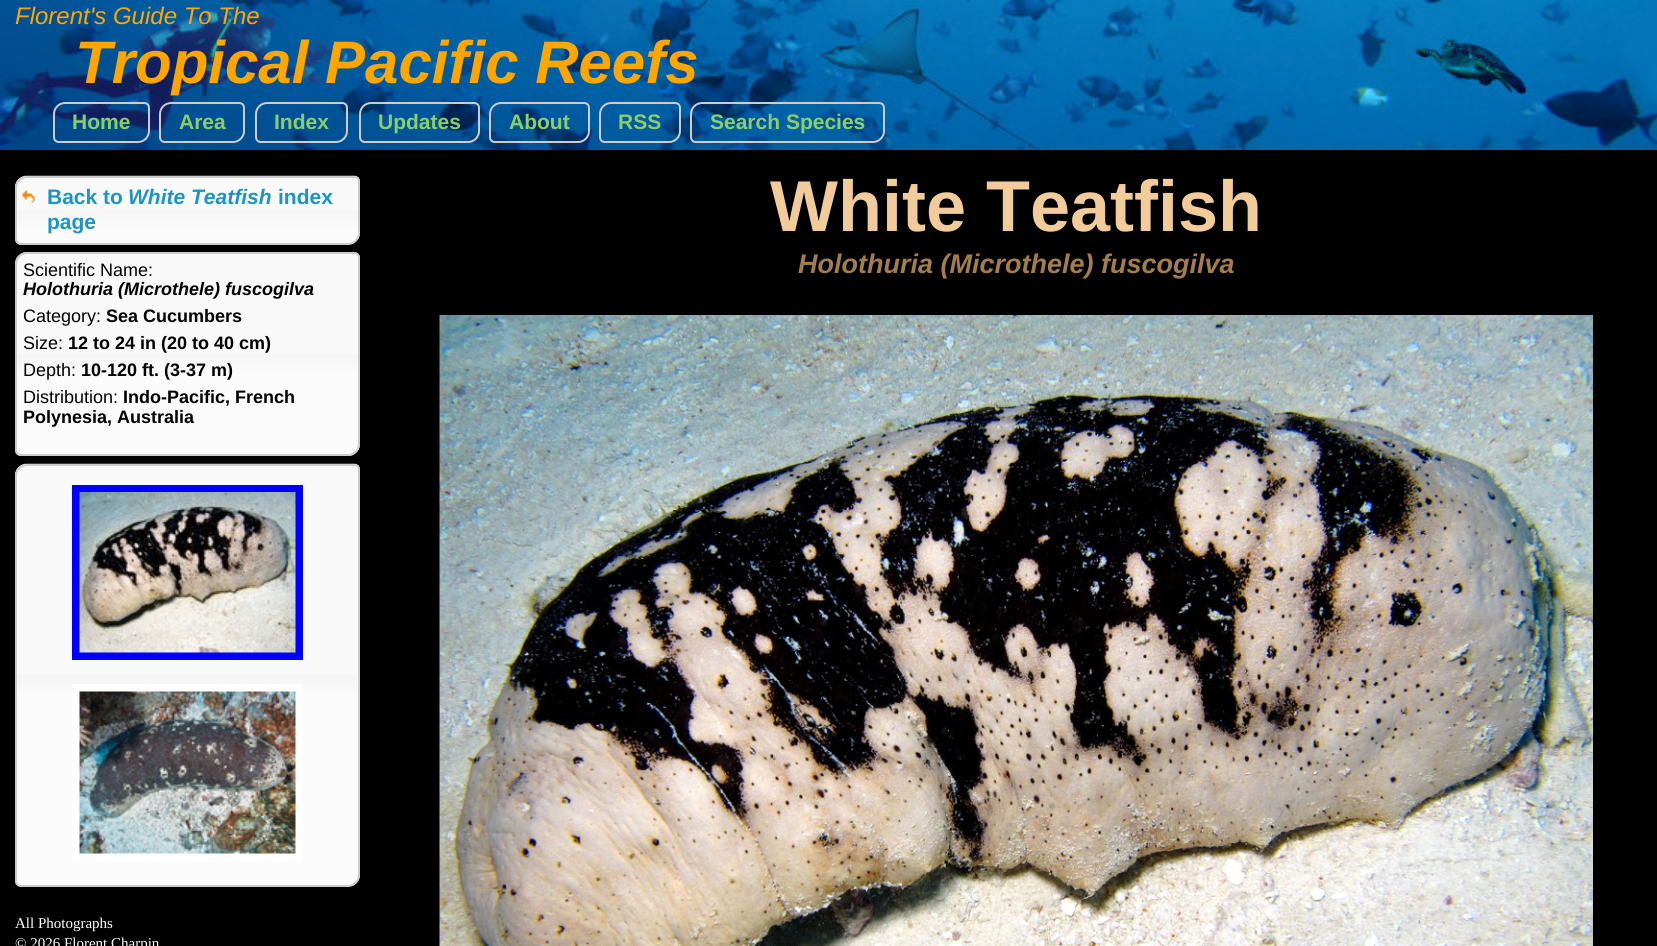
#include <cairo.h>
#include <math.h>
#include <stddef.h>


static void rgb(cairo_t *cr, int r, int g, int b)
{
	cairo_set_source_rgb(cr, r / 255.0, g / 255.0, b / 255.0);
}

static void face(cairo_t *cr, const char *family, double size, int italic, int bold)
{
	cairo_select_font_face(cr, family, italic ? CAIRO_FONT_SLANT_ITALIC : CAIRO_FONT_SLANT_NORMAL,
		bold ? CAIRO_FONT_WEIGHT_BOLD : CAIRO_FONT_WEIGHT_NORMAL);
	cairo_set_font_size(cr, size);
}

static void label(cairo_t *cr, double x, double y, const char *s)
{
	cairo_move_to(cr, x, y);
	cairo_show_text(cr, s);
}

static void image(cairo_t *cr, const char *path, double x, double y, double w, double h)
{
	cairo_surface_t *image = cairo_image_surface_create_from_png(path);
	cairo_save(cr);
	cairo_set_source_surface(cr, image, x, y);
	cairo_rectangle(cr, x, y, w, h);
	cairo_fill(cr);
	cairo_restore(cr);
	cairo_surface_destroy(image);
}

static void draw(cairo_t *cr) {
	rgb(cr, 0, 0, 0);
	cairo_paint(cr);
	image(cr, "image0.png", 0, 0, 1657, 150);
	face(cr, "Liberation Sans", 24, 1, 0);
	rgb(cr, 255, 165, 0);
	label(cr, 15, 24, "Florent's Guide To The");
	face(cr, "Liberation Sans", 60, 1, 1);
	label(cr, 75, 83, "Tropical Pacific Reefs");
	cairo_new_path(cr);
	cairo_move_to(cr, 65, 103);
	cairo_line_to(cr, 144, 103);
	cairo_curve_to(cr, 147, 103, 149, 105, 149, 108);
	cairo_line_to(cr, 149, 131);
	cairo_curve_to(cr, 149, 137, 144, 142, 138, 142);
	cairo_line_to(cr, 59, 142);
	cairo_curve_to(cr, 56, 142, 54, 140, 54, 137);
	cairo_line_to(cr, 54, 114);
	cairo_curve_to(cr, 54, 108, 59, 103, 65, 103);
	cairo_close_path(cr);
	rgb(cr, 204, 204, 204);
	cairo_stroke(cr);
	face(cr, "Liberation Sans", 21, 0, 1);
	rgb(cr, 139, 205, 107);
	label(cr, 72, 129, "Home");
	cairo_new_path(cr);
	cairo_move_to(cr, 171, 103);
	cairo_line_to(cr, 239, 103);
	cairo_curve_to(cr, 242, 103, 244, 105, 244, 108);
	cairo_line_to(cr, 244, 131);
	cairo_curve_to(cr, 244, 137, 239, 142, 233, 142);
	cairo_line_to(cr, 165, 142);
	cairo_curve_to(cr, 162, 142, 160, 140, 160, 137);
	cairo_line_to(cr, 160, 114);
	cairo_curve_to(cr, 160, 108, 165, 103, 171, 103);
	cairo_close_path(cr);
	rgb(cr, 204, 204, 204);
	cairo_stroke(cr);
	rgb(cr, 139, 205, 107);
	label(cr, 179, 129, "Area");
	cairo_new_path(cr);
	cairo_move_to(cr, 267, 103);
	cairo_line_to(cr, 342, 103);
	cairo_curve_to(cr, 345, 103, 347, 105, 347, 108);
	cairo_line_to(cr, 347, 131);
	cairo_curve_to(cr, 347, 137, 342, 142, 336, 142);
	cairo_line_to(cr, 261, 142);
	cairo_curve_to(cr, 258, 142, 256, 140, 256, 137);
	cairo_line_to(cr, 256, 114);
	cairo_curve_to(cr, 256, 108, 261, 103, 267, 103);
	cairo_close_path(cr);
	rgb(cr, 204, 204, 204);
	cairo_stroke(cr);
	rgb(cr, 139, 205, 107);
	label(cr, 274, 129, "Index");
	cairo_new_path(cr);
	cairo_move_to(cr, 371, 103);
	cairo_line_to(cr, 474, 103);
	cairo_curve_to(cr, 477, 103, 479, 105, 479, 108);
	cairo_line_to(cr, 479, 131);
	cairo_curve_to(cr, 479, 137, 474, 142, 468, 142);
	cairo_line_to(cr, 365, 142);
	cairo_curve_to(cr, 362, 142, 360, 140, 360, 137);
	cairo_line_to(cr, 360, 114);
	cairo_curve_to(cr, 360, 108, 365, 103, 371, 103);
	cairo_close_path(cr);
	rgb(cr, 204, 204, 204);
	cairo_stroke(cr);
	rgb(cr, 139, 205, 107);
	label(cr, 378, 129, "Updates");
	cairo_new_path(cr);
	cairo_move_to(cr, 501, 103);
	cairo_line_to(cr, 584, 103);
	cairo_curve_to(cr, 587, 103, 589, 105, 589, 108);
	cairo_line_to(cr, 589, 131);
	cairo_curve_to(cr, 589, 137, 584, 142, 578, 142);
	cairo_line_to(cr, 495, 142);
	cairo_curve_to(cr, 492, 142, 490, 140, 490, 137);
	cairo_line_to(cr, 490, 114);
	cairo_curve_to(cr, 490, 108, 495, 103, 501, 103);
	cairo_close_path(cr);
	rgb(cr, 204, 204, 204);
	cairo_stroke(cr);
	rgb(cr, 139, 205, 107);
	label(cr, 509, 129, "About");
	cairo_new_path(cr);
	cairo_move_to(cr, 611, 103);
	cairo_line_to(cr, 675, 103);
	cairo_curve_to(cr, 678, 103, 680, 105, 680, 108);
	cairo_line_to(cr, 680, 131);
	cairo_curve_to(cr, 680, 137, 675, 142, 669, 142);
	cairo_line_to(cr, 605, 142);
	cairo_curve_to(cr, 602, 142, 600, 140, 600, 137);
	cairo_line_to(cr, 600, 114);
	cairo_curve_to(cr, 600, 108, 605, 103, 611, 103);
	cairo_close_path(cr);
	rgb(cr, 204, 204, 204);
	cairo_stroke(cr);
	rgb(cr, 139, 205, 107);
	label(cr, 618, 129, "RSS");
	cairo_new_path(cr);
	cairo_move_to(cr, 702, 103);
	cairo_line_to(cr, 879, 103);
	cairo_curve_to(cr, 882, 103, 884, 105, 884, 108);
	cairo_line_to(cr, 884, 131);
	cairo_curve_to(cr, 884, 137, 879, 142, 873, 142);
	cairo_line_to(cr, 696, 142);
	cairo_curve_to(cr, 693, 142, 691, 140, 691, 137);
	cairo_line_to(cr, 691, 114);
	cairo_curve_to(cr, 691, 108, 696, 103, 702, 103);
	cairo_close_path(cr);
	rgb(cr, 204, 204, 204);
	cairo_stroke(cr);
	rgb(cr, 139, 205, 107);
	label(cr, 710, 129, "Search Species");
	image(cr, "image1.png", 15, 175, 345, 70);
	cairo_new_path(cr);
	cairo_move_to(cr, 27, 177);
	cairo_line_to(cr, 354, 177);
	cairo_curve_to(cr, 357, 177, 359, 179, 359, 182);
	cairo_line_to(cr, 359, 233);
	cairo_curve_to(cr, 359, 239, 354, 244, 348, 244);
	cairo_line_to(cr, 21, 244);
	cairo_curve_to(cr, 18, 244, 16, 242, 16, 239);
	cairo_line_to(cr, 16, 188);
	cairo_curve_to(cr, 16, 182, 21, 177, 27, 177);
	cairo_close_path(cr);
	rgb(cr, 204, 204, 204);
	cairo_stroke(cr);
	image(cr, "image2.png", 22, 190, 13, 13);
	rgb(cr, 28, 148, 196);
	label(cr, 47, 204, "Back to");
	face(cr, "Liberation Sans", 21, 1, 1);
	label(cr, 128, 204, "White Teatfish");
	face(cr, "Liberation Sans", 21, 0, 1);
	label(cr, 278, 204, "index");
	label(cr, 47, 229, "page");
	image(cr, "image3.png", 15, 252, 345, 204);
	cairo_new_path(cr);
	cairo_move_to(cr, 27, 253);
	cairo_line_to(cr, 354, 253);
	cairo_curve_to(cr, 357, 253, 359, 255, 359, 258);
	cairo_line_to(cr, 359, 444);
	cairo_curve_to(cr, 359, 450, 354, 455, 348, 455);
	cairo_line_to(cr, 21, 455);
	cairo_curve_to(cr, 18, 455, 16, 453, 16, 450);
	cairo_line_to(cr, 16, 264);
	cairo_curve_to(cr, 16, 258, 21, 253, 27, 253);
	cairo_close_path(cr);
	rgb(cr, 204, 204, 204);
	cairo_stroke(cr);
	face(cr, "Liberation Sans", 18, 0, 0);
	rgb(cr, 0, 0, 0);
	label(cr, 23, 276, "Scientific Name:");
	face(cr, "Liberation Sans", 18, 1, 1);
	label(cr, 23, 295, "Holothuria (Microthele) fuscogilva");
	face(cr, "Liberation Sans", 18, 0, 0);
	label(cr, 23, 322, "Category:");
	face(cr, "Liberation Sans", 18, 0, 1);
	label(cr, 106, 322, "Sea Cucumbers");
	face(cr, "Liberation Sans", 18, 0, 0);
	label(cr, 23, 349, "Size:");
	face(cr, "Liberation Sans", 18, 0, 1);
	label(cr, 68, 349, "12 to 24 in (20 to 40 cm)");
	face(cr, "Liberation Sans", 18, 0, 0);
	label(cr, 23, 376, "Depth:");
	face(cr, "Liberation Sans", 18, 0, 1);
	label(cr, 81, 376, "10-120 ft. (3-37 m)");
	face(cr, "Liberation Sans", 18, 0, 0);
	label(cr, 23, 403, "Distribution:");
	face(cr, "Liberation Sans", 18, 0, 1);
	label(cr, 123, 403, "Indo-Pacific, French");
	label(cr, 23, 423, "Polynesia, Australia");
	image(cr, "image4.png", 15, 463, 345, 424);
	cairo_new_path(cr);
	cairo_move_to(cr, 27, 465);
	cairo_line_to(cr, 354, 465);
	cairo_curve_to(cr, 357, 465, 359, 467, 359, 470);
	cairo_line_to(cr, 359, 875);
	cairo_curve_to(cr, 359, 881, 354, 886, 348, 886);
	cairo_line_to(cr, 21, 886);
	cairo_curve_to(cr, 18, 886, 16, 884, 16, 881);
	cairo_line_to(cr, 16, 476);
	cairo_curve_to(cr, 16, 470, 21, 465, 27, 465);
	cairo_close_path(cr);
	rgb(cr, 204, 204, 204);
	cairo_stroke(cr);
	cairo_rectangle(cr, 76, 489, 223, 167);
	rgb(cr, 0, 0, 255);
	cairo_set_line_width(cr, 8);
	cairo_stroke(cr);
	image(cr, "image5.png", 79, 492, 217, 161);
	cairo_rectangle(cr, 76, 688, 223, 169);
	rgb(cr, 255, 255, 255);
	cairo_stroke(cr);
	image(cr, "image6.png", 79, 691, 217, 163);
	face(cr, "Liberation Serif", 15, 0, 0);
	label(cr, 15, 928, "All Photographs");
	label(cr, 15, 948, "© 2026 Florent Charpin");
	face(cr, "Liberation Sans", 72, 0, 1);
	rgb(cr, 241, 203, 153);
	label(cr, 770, 231, "White Teatfish");
	face(cr, "Liberation Sans", 27, 1, 1);
	rgb(cr, 163, 125, 76);
	label(cr, 798, 273, "Holothuria (Microthele) fuscogilva");
	image(cr, "image7.png", 439, 315, 1154, 631);
}

int main(void) {
	cairo_surface_t *surface = cairo_image_surface_create(CAIRO_FORMAT_RGB24, 1657, 946);
	cairo_t *cr = cairo_create(surface);
	cairo_font_options_t *options = cairo_font_options_create();
	cairo_font_options_set_hint_metrics(options, CAIRO_HINT_METRICS_OFF);
	cairo_font_options_set_hint_style(options, CAIRO_HINT_STYLE_NONE);
	cairo_set_font_options(cr, options);
	cairo_set_miter_limit(cr, 4);
	draw(cr);
	cairo_surface_write_to_png(surface, "render.png");
	cairo_font_options_destroy(options);
	cairo_destroy(cr);
	cairo_surface_destroy(surface);
	return 0;
}
